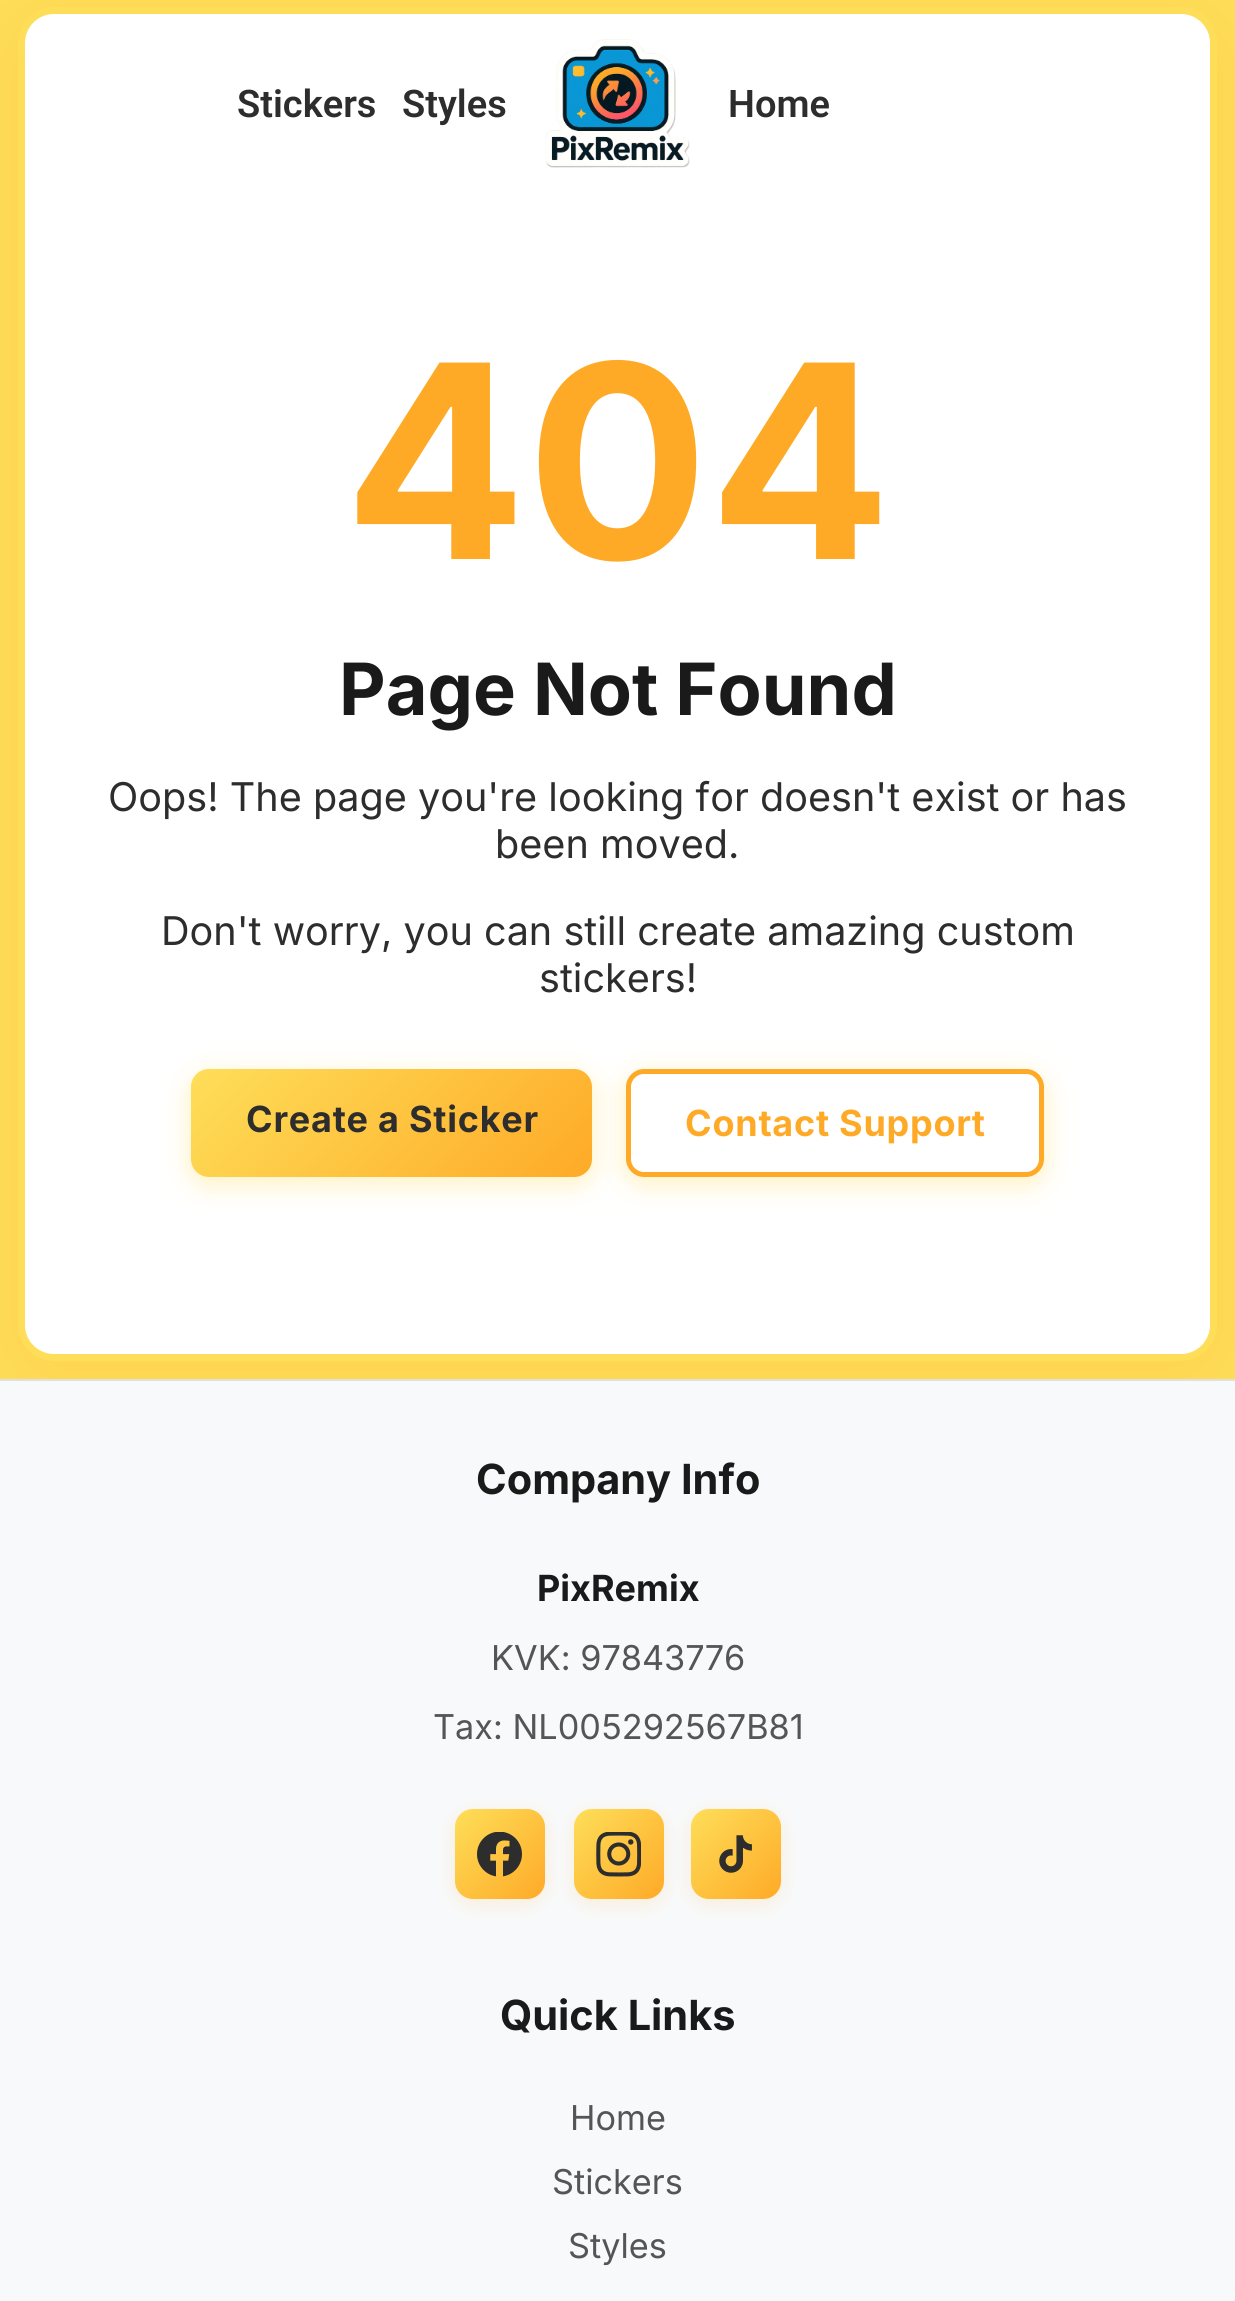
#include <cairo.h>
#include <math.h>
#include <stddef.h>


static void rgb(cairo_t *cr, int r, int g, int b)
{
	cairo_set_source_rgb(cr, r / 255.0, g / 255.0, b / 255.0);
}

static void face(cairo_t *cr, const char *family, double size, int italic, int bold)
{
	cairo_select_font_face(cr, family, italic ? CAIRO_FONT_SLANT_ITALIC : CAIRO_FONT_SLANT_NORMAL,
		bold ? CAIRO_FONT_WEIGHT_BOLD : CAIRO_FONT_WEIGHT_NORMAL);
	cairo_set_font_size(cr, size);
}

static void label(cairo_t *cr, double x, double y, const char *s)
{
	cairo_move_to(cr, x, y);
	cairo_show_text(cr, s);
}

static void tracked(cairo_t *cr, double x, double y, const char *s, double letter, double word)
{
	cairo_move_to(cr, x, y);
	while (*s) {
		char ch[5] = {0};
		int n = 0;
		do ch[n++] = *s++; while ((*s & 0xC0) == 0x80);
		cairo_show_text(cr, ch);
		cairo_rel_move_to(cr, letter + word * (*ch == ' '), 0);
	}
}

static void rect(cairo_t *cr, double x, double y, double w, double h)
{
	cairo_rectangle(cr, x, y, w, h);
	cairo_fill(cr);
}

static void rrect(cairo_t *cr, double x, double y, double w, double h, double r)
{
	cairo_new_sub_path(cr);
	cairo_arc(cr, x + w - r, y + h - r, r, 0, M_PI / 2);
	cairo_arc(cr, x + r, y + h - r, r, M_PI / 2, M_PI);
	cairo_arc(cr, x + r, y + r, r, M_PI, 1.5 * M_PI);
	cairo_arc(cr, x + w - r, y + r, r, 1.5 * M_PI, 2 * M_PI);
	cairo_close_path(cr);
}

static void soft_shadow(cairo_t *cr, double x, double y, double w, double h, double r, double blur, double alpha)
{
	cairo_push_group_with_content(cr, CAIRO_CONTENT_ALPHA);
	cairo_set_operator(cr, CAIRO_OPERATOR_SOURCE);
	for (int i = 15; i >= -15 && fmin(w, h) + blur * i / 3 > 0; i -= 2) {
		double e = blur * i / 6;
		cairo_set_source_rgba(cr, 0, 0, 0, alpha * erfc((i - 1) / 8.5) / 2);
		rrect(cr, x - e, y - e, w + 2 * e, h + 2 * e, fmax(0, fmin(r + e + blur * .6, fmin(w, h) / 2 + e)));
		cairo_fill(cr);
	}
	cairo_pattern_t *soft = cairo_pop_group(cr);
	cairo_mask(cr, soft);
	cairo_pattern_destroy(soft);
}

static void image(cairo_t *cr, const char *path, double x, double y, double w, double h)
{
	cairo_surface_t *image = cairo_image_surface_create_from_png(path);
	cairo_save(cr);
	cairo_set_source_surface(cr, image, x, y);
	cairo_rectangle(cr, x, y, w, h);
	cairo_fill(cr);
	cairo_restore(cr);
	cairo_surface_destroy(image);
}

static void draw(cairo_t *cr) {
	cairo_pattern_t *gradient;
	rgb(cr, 254, 222, 89);
	cairo_paint(cr);
	rgb(cr, 254, 170, 39);
	soft_shadow(cr, 18, 25, 1199, 1354, 36, 45, 0.25);
	rgb(cr, 255, 255, 255);
	rrect(cr, 21.5, 10.5, 1192, 1347, 32.5);
	cairo_fill_preserve(cr);
	rgb(cr, 254, 222, 89);
	cairo_set_line_width(cr, 7);
	cairo_stroke(cr);
	face(cr, "Roboto SemiBold", 38, 0, 0);
	rgb(cr, 45, 45, 45);
	label(cr, 237, 117, "Stickers");
	label(cr, 402, 117, "Styles");
	image(cr, "image0.png", 545, 39, 145, 129);
	label(cr, 728, 117, "Home");
	face(cr, "Inter", 270, 0, 1);
	rgb(cr, 254, 170, 39);
	label(cr, 344, 559, "404");
	face(cr, "Inter", 72, 0, 1);
	rgb(cr, 26, 26, 26);
	label(cr, 339, 715, "Page Not Found");
	face(cr, "Inter", 39.6, 0, 0);
	rgb(cr, 45, 45, 45);
	label(cr, 108, 811, "Oops! The page you're looking for doesn't exist or has");
	label(cr, 495, 858, "been moved.");
	label(cr, 161, 945, "Don't worry, you can still create amazing custom");
	label(cr, 539, 992, "stickers!");
	rgb(cr, 254, 222, 89);
	soft_shadow(cr, 191, 1076, 401, 108, 18, 13.5, 0.4);
	gradient = cairo_pattern_create_linear(264, 996, 519, 1250);
	cairo_pattern_add_color_stop_rgba(gradient, 0, 0.996, 0.871, 0.349, 1);
	cairo_pattern_add_color_stop_rgba(gradient, 1, 0.996, 0.667, 0.153, 1);
	cairo_set_source(cr, gradient);
	cairo_pattern_destroy(gradient);
	rrect(cr, 191, 1069, 401, 108, 18);
	cairo_fill(cr);
	face(cr, "Inter", 36, 0, 1);
	rgb(cr, 45, 45, 45);
	tracked(cr, 246, 1132, "Create a Sticker", 0.75, 0);
	cairo_save(cr);
	cairo_set_fill_rule(cr, CAIRO_FILL_RULE_EVEN_ODD);
	cairo_new_path(cr);
	cairo_move_to(cr, 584, 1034);
	cairo_line_to(cr, 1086, 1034);
	cairo_line_to(cr, 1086, 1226);
	cairo_line_to(cr, 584, 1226);
	cairo_close_path(cr);
	cairo_move_to(cr, 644, 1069);
	cairo_line_to(cr, 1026, 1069);
	cairo_curve_to(cr, 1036, 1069, 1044, 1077, 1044, 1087);
	cairo_line_to(cr, 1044, 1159);
	cairo_curve_to(cr, 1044, 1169, 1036, 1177, 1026, 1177);
	cairo_line_to(cr, 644, 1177);
	cairo_curve_to(cr, 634, 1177, 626, 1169, 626, 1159);
	cairo_line_to(cr, 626, 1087);
	cairo_curve_to(cr, 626, 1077, 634, 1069, 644, 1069);
	cairo_close_path(cr);
	cairo_clip(cr);
	rgb(cr, 254, 222, 89);
	soft_shadow(cr, 626, 1076, 418, 108, 18, 13.5, 0.4);
	cairo_restore(cr);
	rrect(cr, 628.5, 1071.5, 413, 103, 15.5);
	rgb(cr, 254, 170, 39);
	cairo_set_line_width(cr, 5);
	cairo_stroke(cr);
	tracked(cr, 685, 1136, "Contact Support", 0.75, 0);
	rgb(cr, 248, 249, 250);
	rect(cr, 0, 1381, 1235, 920);
	rgb(cr, 224, 224, 224);
	rect(cr, 0, 1379, 1235, 2);
	face(cr, "Inter", 41.5, 0, 1);
	rgb(cr, 26, 26, 26);
	label(cr, 476, 1494, "Company Info");
	face(cr, "Inter", 36, 0, 1);
	label(cr, 537, 1601, "PixRemix");
	face(cr, "Inter", 34.25, 0, 0);
	rgb(cr, 85, 85, 85);
	label(cr, 491, 1670, "KVK: 97843776");
	label(cr, 433, 1739, "Tax: NL005292567B81");
	rgb(cr, 254, 170, 39);
	soft_shadow(cr, 455, 1814, 90, 90, 18, 9, 0.15);
	gradient = cairo_pattern_create_linear(455, 1809, 545, 1899);
	cairo_pattern_add_color_stop_rgba(gradient, 0, 0.996, 0.871, 0.349, 1);
	cairo_pattern_add_color_stop_rgba(gradient, 1, 0.996, 0.667, 0.153, 1);
	cairo_set_source(cr, gradient);
	cairo_pattern_destroy(gradient);
	rrect(cr, 455, 1809, 90, 90, 18);
	cairo_fill(cr);
	image(cr, "image1.png", 477, 1832, 45, 45);
	rgb(cr, 254, 170, 39);
	soft_shadow(cr, 574, 1814, 90, 90, 18, 9, 0.15);
	gradient = cairo_pattern_create_linear(574, 1809, 664, 1899);
	cairo_pattern_add_color_stop_rgba(gradient, 0, 0.996, 0.871, 0.349, 1);
	cairo_pattern_add_color_stop_rgba(gradient, 1, 0.996, 0.667, 0.153, 1);
	cairo_set_source(cr, gradient);
	cairo_pattern_destroy(gradient);
	rrect(cr, 574, 1809, 90, 90, 18);
	cairo_fill(cr);
	image(cr, "image2.png", 596, 1832, 45, 45);
	rgb(cr, 254, 170, 39);
	soft_shadow(cr, 691, 1814, 90, 90, 18, 9, 0.15);
	gradient = cairo_pattern_create_linear(691, 1809, 781, 1899);
	cairo_pattern_add_color_stop_rgba(gradient, 0, 0.996, 0.871, 0.349, 1);
	cairo_pattern_add_color_stop_rgba(gradient, 1, 0.996, 0.667, 0.153, 1);
	cairo_set_source(cr, gradient);
	cairo_pattern_destroy(gradient);
	rrect(cr, 691, 1809, 90, 90, 18);
	cairo_fill(cr);
	image(cr, "image3.png", 719, 1835, 33, 38);
	face(cr, "Inter", 41.5, 0, 1);
	rgb(cr, 26, 26, 26);
	label(cr, 500, 2030, "Quick Links");
	face(cr, "Inter", 34.25, 0, 0);
	rgb(cr, 85, 85, 85);
	label(cr, 570, 2130, "Home");
	label(cr, 552, 2194, "Stickers");
	label(cr, 568, 2258, "Styles");
}

int main(void) {
	cairo_surface_t *surface = cairo_image_surface_create(CAIRO_FORMAT_RGB24, 1235, 2301);
	cairo_t *cr = cairo_create(surface);
	cairo_font_options_t *options = cairo_font_options_create();
	cairo_font_options_set_hint_metrics(options, CAIRO_HINT_METRICS_OFF);
	cairo_font_options_set_hint_style(options, CAIRO_HINT_STYLE_NONE);
	cairo_set_font_options(cr, options);
	cairo_set_miter_limit(cr, 4);
	draw(cr);
	cairo_surface_write_to_png(surface, "render.png");
	cairo_font_options_destroy(options);
	cairo_destroy(cr);
	cairo_surface_destroy(surface);
	return 0;
}
